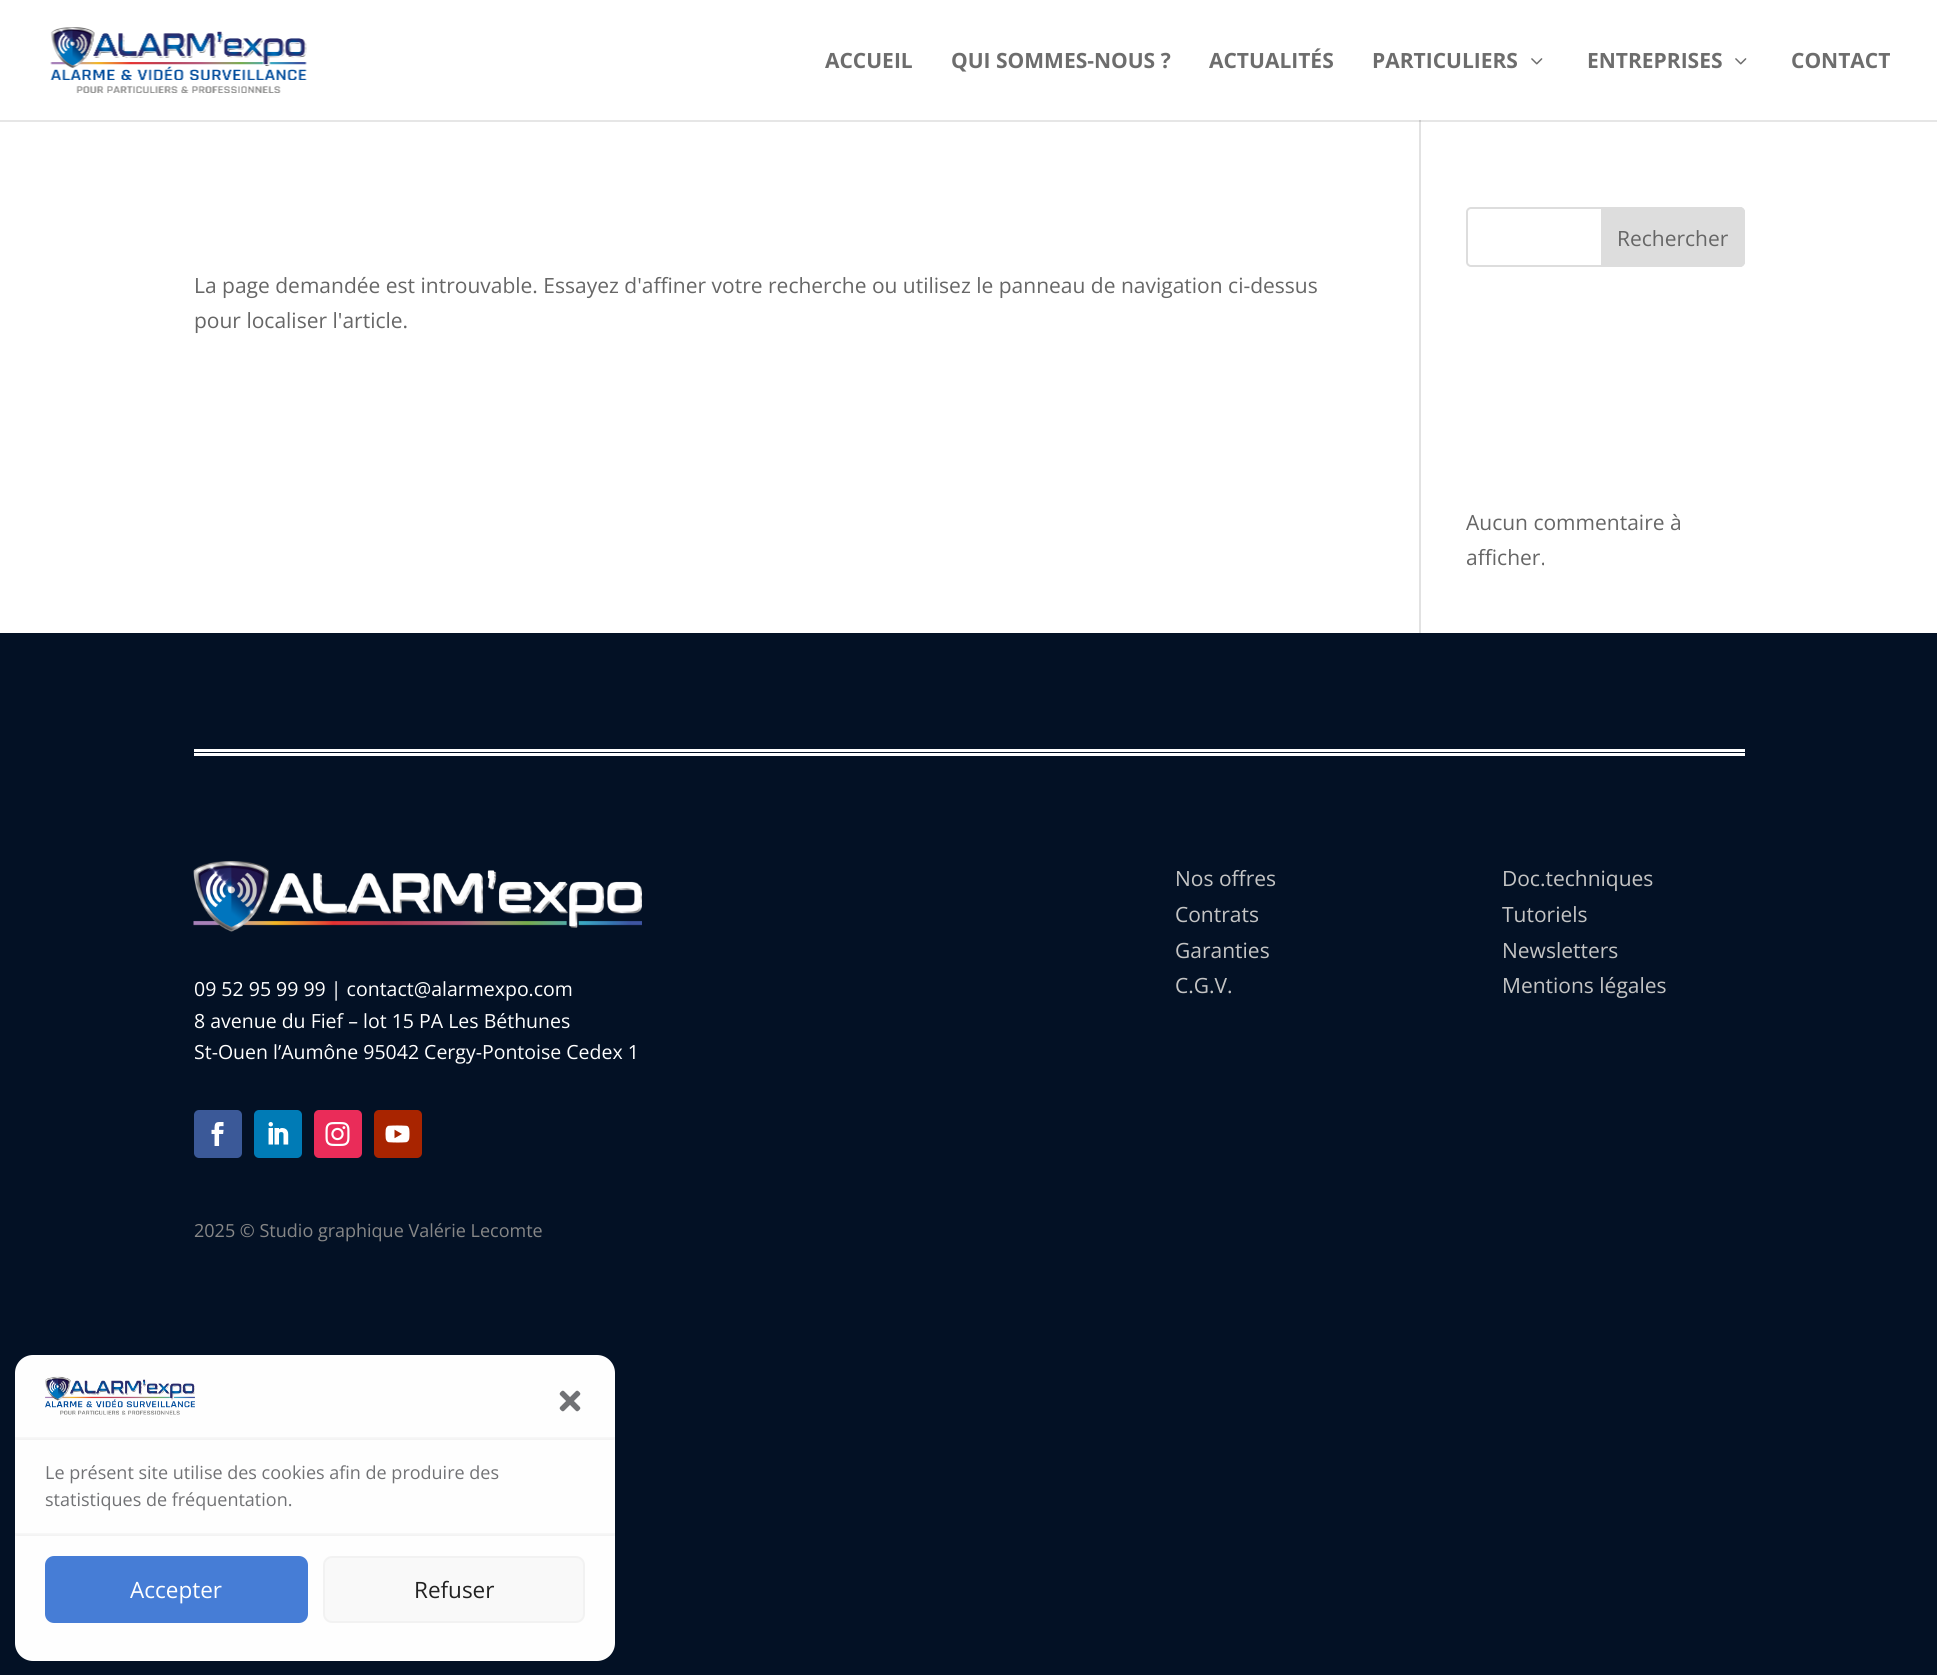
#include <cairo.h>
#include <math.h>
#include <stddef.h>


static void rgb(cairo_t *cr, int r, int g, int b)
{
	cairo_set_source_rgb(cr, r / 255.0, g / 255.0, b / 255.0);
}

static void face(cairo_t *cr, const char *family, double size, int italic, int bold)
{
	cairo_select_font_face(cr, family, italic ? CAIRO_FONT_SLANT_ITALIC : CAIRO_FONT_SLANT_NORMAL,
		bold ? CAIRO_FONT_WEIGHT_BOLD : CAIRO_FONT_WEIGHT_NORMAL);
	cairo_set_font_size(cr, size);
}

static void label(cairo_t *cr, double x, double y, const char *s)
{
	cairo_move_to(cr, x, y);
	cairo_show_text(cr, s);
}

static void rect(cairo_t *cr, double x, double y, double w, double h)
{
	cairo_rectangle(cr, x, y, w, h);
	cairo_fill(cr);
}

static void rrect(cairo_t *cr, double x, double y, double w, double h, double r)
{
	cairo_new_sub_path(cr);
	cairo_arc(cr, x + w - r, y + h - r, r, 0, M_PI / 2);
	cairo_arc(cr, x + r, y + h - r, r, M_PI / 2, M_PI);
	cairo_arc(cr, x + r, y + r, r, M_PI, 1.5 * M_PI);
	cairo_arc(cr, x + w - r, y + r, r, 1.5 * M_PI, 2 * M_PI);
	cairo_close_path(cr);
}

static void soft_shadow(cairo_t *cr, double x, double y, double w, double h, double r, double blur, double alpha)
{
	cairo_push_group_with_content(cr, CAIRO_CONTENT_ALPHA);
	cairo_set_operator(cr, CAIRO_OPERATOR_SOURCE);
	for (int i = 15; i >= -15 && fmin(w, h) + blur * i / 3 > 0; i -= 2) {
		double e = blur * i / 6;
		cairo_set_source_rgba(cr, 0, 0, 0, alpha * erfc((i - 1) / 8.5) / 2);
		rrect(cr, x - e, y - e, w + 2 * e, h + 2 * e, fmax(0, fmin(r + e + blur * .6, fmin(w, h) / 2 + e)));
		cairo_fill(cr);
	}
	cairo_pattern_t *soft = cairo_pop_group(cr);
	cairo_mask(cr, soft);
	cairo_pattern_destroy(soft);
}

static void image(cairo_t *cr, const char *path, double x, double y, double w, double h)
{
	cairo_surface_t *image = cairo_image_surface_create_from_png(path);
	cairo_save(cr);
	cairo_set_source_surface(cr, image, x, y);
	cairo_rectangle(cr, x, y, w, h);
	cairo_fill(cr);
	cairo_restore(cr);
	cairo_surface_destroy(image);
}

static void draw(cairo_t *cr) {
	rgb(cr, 3, 17, 37);
	cairo_paint(cr);
	rgb(cr, 255, 255, 255);
	rect(cr, 0, 0, 1937, 120);
	image(cr, "image0.png", 50, 27, 257, 66);
	face(cr, "Open Sans", 21, 0, 1);
	rgb(cr, 109, 109, 109);
	label(cr, 825, 68, "ACCUEIL");
	label(cr, 951, 68, "QUI SOMMES-NOUS ?");
	label(cr, 1209, 68, "ACTUALITÉS");
	label(cr, 1372, 68, "PARTICULIERS");
	image(cr, "image1.png", 1531, 58, 12, 7);
	label(cr, 1587, 68, "ENTREPRISES");
	image(cr, "image1.png", 1735, 58, 12, 7);
	label(cr, 1791, 68, "CONTACT");
	rgb(cr, 255, 255, 255);
	rect(cr, 0, 122, 1937, 511);
	rgb(cr, 230, 230, 230);
	rect(cr, 0, 120, 1937, 2);
	rgb(cr, 226, 226, 226);
	rect(cr, 1419, 120, 2, 513);
	rgb(cr, 203, 203, 203);
	rect(cr, 1419, 120, 2, 2);
	face(cr, "Open Sans", 21, 0, 0);
	rgb(cr, 102, 102, 102);
	label(cr, 194, 293, "La page demandée est introuvable. Essayez d'affiner votre recherche ou utilisez le panneau de navigation ci-dessus");
	label(cr, 194, 328, "pour localiser l'article.");
	rrect(cr, 1467, 208, 277, 58, 4);
	rgb(cr, 221, 221, 221);
	cairo_stroke(cr);
	cairo_new_path(cr);
	cairo_move_to(cr, 1602, 208);
	cairo_line_to(cr, 1740, 208);
	cairo_curve_to(cr, 1742, 208, 1744, 210, 1744, 212);
	cairo_line_to(cr, 1744, 262);
	cairo_curve_to(cr, 1744, 264, 1742, 266, 1740, 266);
	cairo_line_to(cr, 1602, 266);
	cairo_close_path(cr);
	cairo_fill_preserve(cr);
	cairo_stroke(cr);
	rgb(cr, 102, 102, 102);
	label(cr, 1617, 246, "Rechercher");
	label(cr, 1466, 530, "Aucun commentaire à");
	label(cr, 1466, 565, "afficher.");
	rgb(cr, 255, 255, 255);
	rect(cr, 194, 749, 1551, 3);
	rect(cr, 194, 753, 1551, 3);
	rgb(cr, 196, 196, 196);
	label(cr, 1175, 886, "Nos offres");
	label(cr, 1175, 922, "Contrats");
	label(cr, 1175, 958, "Garanties");
	label(cr, 1175, 993, "C.G.V.");
	label(cr, 1502, 886, "Doc.techniques");
	label(cr, 1502, 922, "Tutoriels");
	label(cr, 1502, 958, "Newsletters");
	label(cr, 1502, 993, "Mentions légales");
	image(cr, "image2.png", 193, 861, 449, 71);
	face(cr, "Open Sans", 19.5, 0, 0);
	rgb(cr, 255, 255, 255);
	label(cr, 194, 996, "09 52 95 99 99 | contact@alarmexpo.com");
	label(cr, 194, 1028, "8 avenue du Fief – lot 15 PA Les Béthunes");
	label(cr, 194, 1059, "St-Ouen l’Aumône 95042 Cergy-Pontoise Cedex 1");
	rgb(cr, 59, 89, 152);
	rrect(cr, 194, 1110, 48, 48, 5);
	cairo_fill(cr);
	image(cr, "image3.png", 211, 1122, 13, 24);
	rgb(cr, 0, 123, 182);
	rrect(cr, 254, 1110, 48, 48, 5);
	cairo_fill(cr);
	image(cr, "image4.png", 268, 1122, 21, 23);
	rgb(cr, 234, 44, 89);
	rrect(cr, 314, 1110, 48, 48, 5);
	cairo_fill(cr);
	image(cr, "image5.png", 325, 1122, 25, 24);
	rgb(cr, 168, 36, 0);
	rrect(cr, 374, 1110, 48, 48, 5);
	cairo_fill(cr);
	image(cr, "image6.png", 385, 1125, 25, 18);
	face(cr, "Open Sans", 18, 0, 0);
	rgb(cr, 135, 135, 135);
	label(cr, 194, 1237, "2025 © Studio graphique Valérie Lecomte");
	rgb(cr, 254, 254, 254);
	rrect(cr, 15, 1355, 600, 306, 18);
	cairo_fill(cr);
	image(cr, "image7.png", 45, 1376, 150, 39);
	image(cr, "image8.png", 559, 1390, 22, 22);
	cairo_save(cr);
	cairo_rectangle(cr, 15, 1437, 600, 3);
	cairo_clip(cr);
	rgb(cr, 0, 0, 0);
	soft_shadow(cr, 15, 1437, 600, 5, 0, 2, 0.05);
	cairo_restore(cr);
	rgb(cr, 113, 114, 117);
	label(cr, 45, 1479, "Le présent site utilise des cookies afin de produire des");
	label(cr, 45, 1506, "statistiques de fréquentation.");
	cairo_save(cr);
	cairo_rectangle(cr, 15, 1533, 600, 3);
	cairo_clip(cr);
	rgb(cr, 0, 0, 0);
	soft_shadow(cr, 15, 1533, 600, 5, 0, 2, 0.05);
	cairo_restore(cr);
	rgb(cr, 70, 125, 214);
	rrect(cr, 46, 1557, 261, 65, 8);
	cairo_fill_preserve(cr);
	cairo_stroke(cr);
	face(cr, "Open Sans", 22.5, 0, 0);
	rgb(cr, 255, 255, 255);
	label(cr, 130, 1598, "Accepter");
	rgb(cr, 249, 249, 249);
	rrect(cr, 324, 1557, 260, 65, 8);
	cairo_fill_preserve(cr);
	rgb(cr, 242, 242, 242);
	cairo_stroke(cr);
	rgb(cr, 34, 34, 34);
	label(cr, 414, 1598, "Refuser");
}

int main(void) {
	cairo_surface_t *surface = cairo_image_surface_create(CAIRO_FORMAT_RGB24, 1937, 1675);
	cairo_t *cr = cairo_create(surface);
	cairo_font_options_t *options = cairo_font_options_create();
	cairo_font_options_set_hint_metrics(options, CAIRO_HINT_METRICS_OFF);
	cairo_font_options_set_hint_style(options, CAIRO_HINT_STYLE_NONE);
	cairo_set_font_options(cr, options);
	cairo_set_miter_limit(cr, 4);
	draw(cr);
	cairo_surface_write_to_png(surface, "render.png");
	cairo_font_options_destroy(options);
	cairo_destroy(cr);
	cairo_surface_destroy(surface);
	return 0;
}
